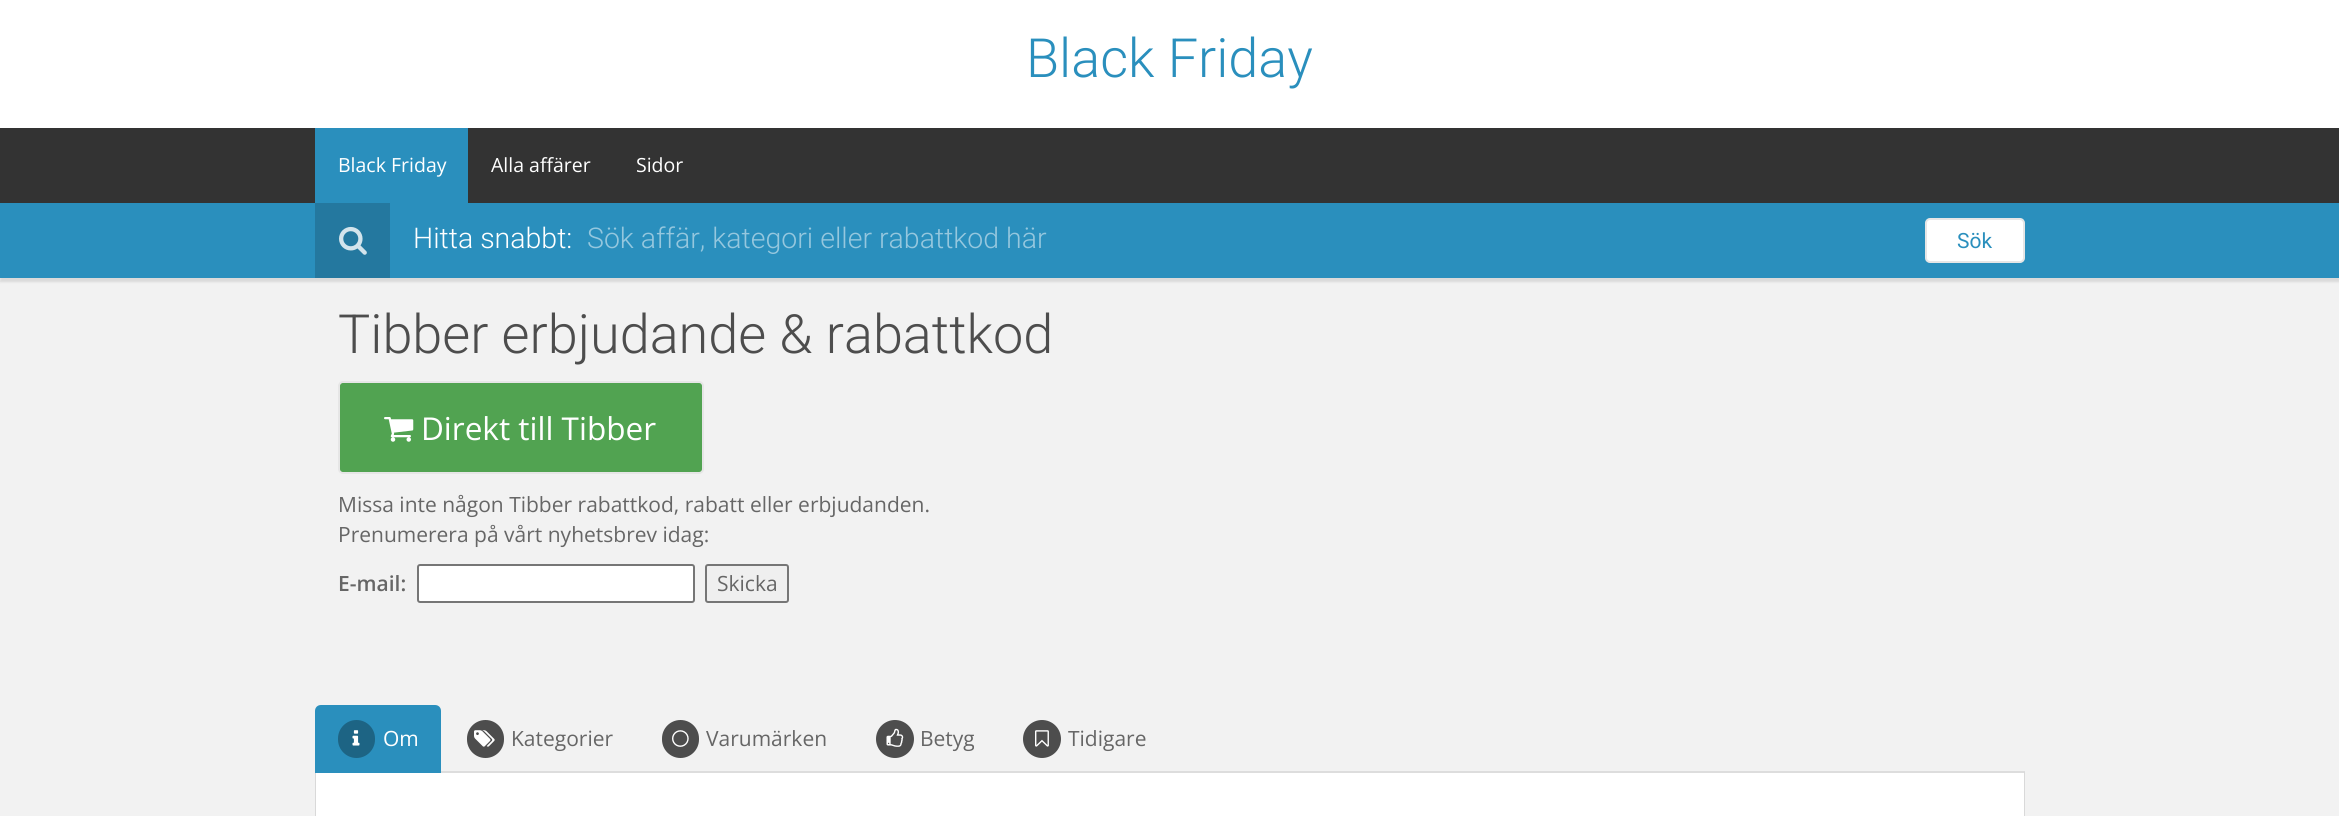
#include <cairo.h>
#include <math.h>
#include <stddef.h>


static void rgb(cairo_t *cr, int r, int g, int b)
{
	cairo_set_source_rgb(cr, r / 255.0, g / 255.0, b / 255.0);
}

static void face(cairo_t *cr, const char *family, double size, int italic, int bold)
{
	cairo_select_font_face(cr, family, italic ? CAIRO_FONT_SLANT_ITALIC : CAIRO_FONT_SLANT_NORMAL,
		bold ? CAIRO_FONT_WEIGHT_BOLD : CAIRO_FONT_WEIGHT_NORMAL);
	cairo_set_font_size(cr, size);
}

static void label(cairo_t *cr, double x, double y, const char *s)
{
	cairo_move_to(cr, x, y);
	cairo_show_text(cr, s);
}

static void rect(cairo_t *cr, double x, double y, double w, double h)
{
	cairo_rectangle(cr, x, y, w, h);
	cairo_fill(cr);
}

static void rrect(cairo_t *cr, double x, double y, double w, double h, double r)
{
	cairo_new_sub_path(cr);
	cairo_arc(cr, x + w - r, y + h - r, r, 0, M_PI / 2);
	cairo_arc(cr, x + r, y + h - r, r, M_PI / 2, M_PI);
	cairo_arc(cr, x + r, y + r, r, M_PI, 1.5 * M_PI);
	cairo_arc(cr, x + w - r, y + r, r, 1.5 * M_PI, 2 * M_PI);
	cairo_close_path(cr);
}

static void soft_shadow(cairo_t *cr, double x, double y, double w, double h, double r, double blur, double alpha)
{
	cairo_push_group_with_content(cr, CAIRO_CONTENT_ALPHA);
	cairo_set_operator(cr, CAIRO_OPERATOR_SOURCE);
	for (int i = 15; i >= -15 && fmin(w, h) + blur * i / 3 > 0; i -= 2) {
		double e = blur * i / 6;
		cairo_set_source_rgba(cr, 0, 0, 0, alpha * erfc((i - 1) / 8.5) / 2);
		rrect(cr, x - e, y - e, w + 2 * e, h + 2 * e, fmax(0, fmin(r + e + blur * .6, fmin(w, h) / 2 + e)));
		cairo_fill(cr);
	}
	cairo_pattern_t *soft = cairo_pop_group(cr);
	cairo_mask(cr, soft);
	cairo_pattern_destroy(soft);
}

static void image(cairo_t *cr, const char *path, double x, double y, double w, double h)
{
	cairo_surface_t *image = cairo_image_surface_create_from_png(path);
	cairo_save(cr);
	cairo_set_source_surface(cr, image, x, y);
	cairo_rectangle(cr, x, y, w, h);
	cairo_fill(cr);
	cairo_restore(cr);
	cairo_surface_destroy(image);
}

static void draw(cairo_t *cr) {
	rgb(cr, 242, 242, 242);
	cairo_paint(cr);
	rgb(cr, 255, 255, 255);
	rect(cr, 0, 0, 2339, 128);
	face(cr, "Roboto Light", 54, 0, 0);
	rgb(cr, 42, 143, 189);
	label(cr, 1026, 77, "Black Friday");
	rgb(cr, 51, 51, 51);
	rect(cr, 0, 128, 2339, 75);
	rgb(cr, 42, 143, 189);
	rect(cr, 315, 128, 153, 75);
	face(cr, "Open Sans", 19.5, 0, 0);
	rgb(cr, 255, 255, 255);
	label(cr, 338, 172, "Black Friday");
	label(cr, 491, 172, "Alla affärer");
	label(cr, 636, 172, "Sidor");
	rgb(cr, 0, 0, 0);
	soft_shadow(cr, 0, 207, 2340, 75, 0, 1, 0.1);
	rgb(cr, 42, 143, 189);
	rect(cr, 0, 203, 2339, 75);
	rgb(cr, 36, 120, 159);
	rect(cr, 315, 203, 75, 75);
	image(cr, "image0.png", 339, 226, 28, 29);
	face(cr, "Roboto Light", 28.5, 0, 0);
	rgb(cr, 255, 255, 255);
	label(cr, 413, 248, "Hitta snabbt:");
	rgb(cr, 149, 199, 222);
	label(cr, 587, 248, "Sök affär, kategori eller rabattkod här");
	rgb(cr, 255, 255, 255);
	rrect(cr, 1926, 219, 98, 43, 4);
	cairo_fill_preserve(cr);
	rgb(cr, 230, 230, 230);
	cairo_stroke(cr);
	face(cr, "Roboto", 21, 0, 0);
	rgb(cr, 42, 143, 189);
	label(cr, 1957, 248, "Sök");
	face(cr, "Roboto Light", 54, 0, 0);
	rgb(cr, 77, 77, 77);
	label(cr, 338, 353, "Tibber erbjudande & rabattkod");
	rgb(cr, 81, 163, 81);
	rrect(cr, 339, 382, 364, 91, 4);
	cairo_fill_preserve(cr);
	rgb(cr, 230, 230, 230);
	cairo_stroke(cr);
	image(cr, "image1.png", 384, 417, 30, 25);
	face(cr, "Open Sans", 31.5, 0, 0);
	rgb(cr, 255, 255, 255);
	label(cr, 421, 440, "Direkt till Tibber");
	face(cr, "Open Sans", 21, 0, 0);
	rgb(cr, 102, 102, 102);
	label(cr, 338, 512, "Missa inte någon Tibber rabattkod, rabatt eller erbjudanden.");
	label(cr, 338, 542, "Prenumerera på vårt nyhetsbrev idag:");
	face(cr, "Open Sans SemiBold", 21, 0, 0);
	label(cr, 338, 591, "E-mail:");
	rgb(cr, 255, 255, 255);
	rrect(cr, 418, 565, 276, 37, 2);
	cairo_fill_preserve(cr);
	rgb(cr, 118, 118, 118);
	cairo_stroke(cr);
	rgb(cr, 239, 239, 239);
	rrect(cr, 706, 565, 82, 37, 2);
	cairo_fill_preserve(cr);
	rgb(cr, 118, 118, 118);
	cairo_stroke(cr);
	face(cr, "Open Sans", 21, 0, 0);
	rgb(cr, 102, 102, 102);
	label(cr, 717, 591, "Skicka");
	rgb(cr, 221, 221, 221);
	rect(cr, 441, 771, 1584, 2);
	rgb(cr, 255, 255, 255);
	rect(cr, 316, 773, 1708, 43);
	rgb(cr, 217, 217, 217);
	cairo_set_fill_rule(cr, CAIRO_FILL_RULE_EVEN_ODD);
	cairo_new_path(cr);
	cairo_move_to(cr, 315, 772);
	cairo_line_to(cr, 2025, 772);
	cairo_line_to(cr, 2025, 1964);
	cairo_curve_to(cr, 2025, 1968, 2022, 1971, 2018, 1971);
	cairo_line_to(cr, 322, 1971);
	cairo_curve_to(cr, 318, 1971, 315, 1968, 315, 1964);
	cairo_close_path(cr);
	cairo_move_to(cr, 316, 772);
	cairo_line_to(cr, 2024, 772);
	cairo_line_to(cr, 2024, 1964);
	cairo_curve_to(cr, 2024, 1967, 2021, 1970, 2018, 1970);
	cairo_line_to(cr, 322, 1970);
	cairo_curve_to(cr, 319, 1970, 316, 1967, 316, 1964);
	cairo_close_path(cr);
	cairo_fill(cr);
	rgb(cr, 42, 143, 189);
	cairo_new_path(cr);
	cairo_move_to(cr, 321, 705);
	cairo_line_to(cr, 435, 705);
	cairo_curve_to(cr, 438.5, 705, 441, 707.5, 441, 711);
	cairo_line_to(cr, 441, 773);
	cairo_line_to(cr, 315, 773);
	cairo_line_to(cr, 315, 711);
	cairo_curve_to(cr, 315, 707.5, 317.5, 705, 321, 705);
	cairo_close_path(cr);
	cairo_fill(cr);
	rgb(cr, 29, 100, 132);
	rrect(cr, 338, 720, 37, 38, 18.5);
	cairo_fill(cr);
	image(cr, "image2.png", 352, 730, 8, 16);
	rgb(cr, 255, 255, 255);
	label(cr, 383, 746, "Om");
	rgb(cr, 77, 77, 77);
	rrect(cr, 467, 720, 37, 38, 18.5);
	cairo_fill(cr);
	image(cr, "image3.png", 474, 730, 21, 17);
	rgb(cr, 102, 102, 102);
	label(cr, 511, 746, "Kategorier");
	rgb(cr, 77, 77, 77);
	rrect(cr, 662, 720, 37, 38, 18.5);
	cairo_fill(cr);
	image(cr, "image4.png", 672, 730, 17, 17);
	rgb(cr, 102, 102, 102);
	label(cr, 706, 746, "Varumärken");
	rgb(cr, 77, 77, 77);
	cairo_new_path(cr);
	cairo_arc(cr, 895, 739, 19, 0, 2 * M_PI);
	cairo_fill(cr);
	image(cr, "image5.png", 886, 728, 18, 19);
	rgb(cr, 102, 102, 102);
	label(cr, 920, 746, "Betyg");
	rgb(cr, 77, 77, 77);
	cairo_new_path(cr);
	cairo_arc(cr, 1042, 739, 19, 0, 2 * M_PI);
	cairo_fill(cr);
	image(cr, "image6.png", 1035, 730, 14, 17);
	rgb(cr, 102, 102, 102);
	label(cr, 1068, 746, "Tidigare");
}

int main(void) {
	cairo_surface_t *surface = cairo_image_surface_create(CAIRO_FORMAT_RGB24, 2339, 816);
	cairo_t *cr = cairo_create(surface);
	cairo_font_options_t *options = cairo_font_options_create();
	cairo_font_options_set_hint_metrics(options, CAIRO_HINT_METRICS_OFF);
	cairo_font_options_set_hint_style(options, CAIRO_HINT_STYLE_NONE);
	cairo_set_font_options(cr, options);
	cairo_set_miter_limit(cr, 4);
	draw(cr);
	cairo_surface_write_to_png(surface, "render.png");
	cairo_font_options_destroy(options);
	cairo_destroy(cr);
	cairo_surface_destroy(surface);
	return 0;
}
